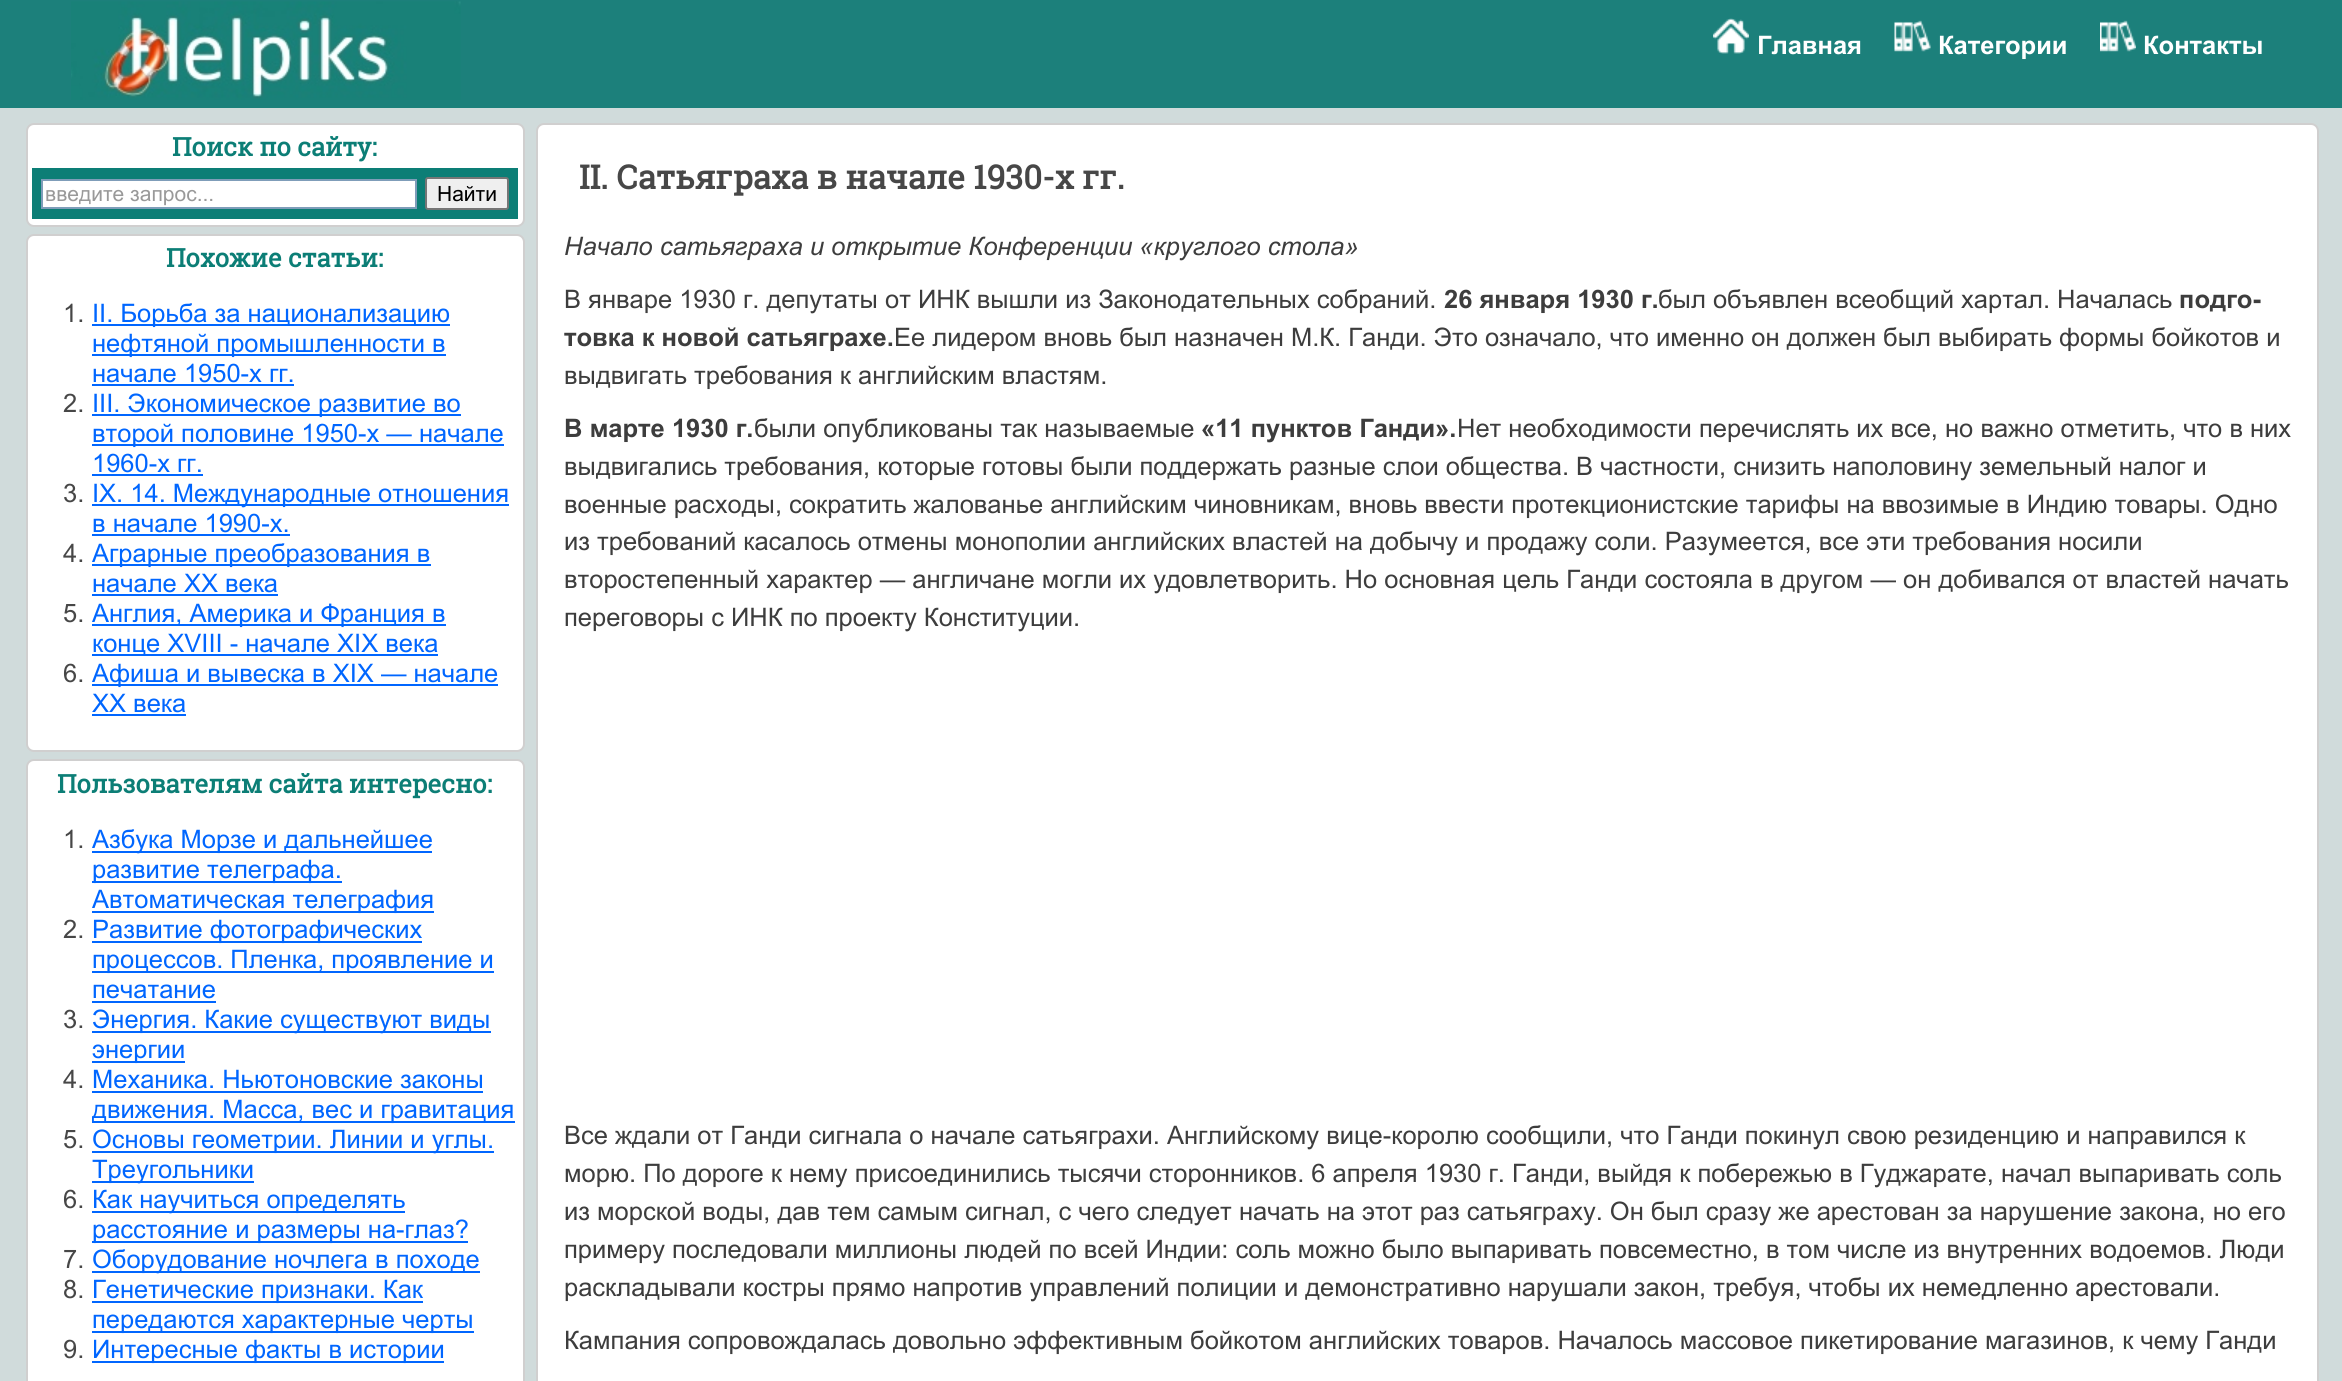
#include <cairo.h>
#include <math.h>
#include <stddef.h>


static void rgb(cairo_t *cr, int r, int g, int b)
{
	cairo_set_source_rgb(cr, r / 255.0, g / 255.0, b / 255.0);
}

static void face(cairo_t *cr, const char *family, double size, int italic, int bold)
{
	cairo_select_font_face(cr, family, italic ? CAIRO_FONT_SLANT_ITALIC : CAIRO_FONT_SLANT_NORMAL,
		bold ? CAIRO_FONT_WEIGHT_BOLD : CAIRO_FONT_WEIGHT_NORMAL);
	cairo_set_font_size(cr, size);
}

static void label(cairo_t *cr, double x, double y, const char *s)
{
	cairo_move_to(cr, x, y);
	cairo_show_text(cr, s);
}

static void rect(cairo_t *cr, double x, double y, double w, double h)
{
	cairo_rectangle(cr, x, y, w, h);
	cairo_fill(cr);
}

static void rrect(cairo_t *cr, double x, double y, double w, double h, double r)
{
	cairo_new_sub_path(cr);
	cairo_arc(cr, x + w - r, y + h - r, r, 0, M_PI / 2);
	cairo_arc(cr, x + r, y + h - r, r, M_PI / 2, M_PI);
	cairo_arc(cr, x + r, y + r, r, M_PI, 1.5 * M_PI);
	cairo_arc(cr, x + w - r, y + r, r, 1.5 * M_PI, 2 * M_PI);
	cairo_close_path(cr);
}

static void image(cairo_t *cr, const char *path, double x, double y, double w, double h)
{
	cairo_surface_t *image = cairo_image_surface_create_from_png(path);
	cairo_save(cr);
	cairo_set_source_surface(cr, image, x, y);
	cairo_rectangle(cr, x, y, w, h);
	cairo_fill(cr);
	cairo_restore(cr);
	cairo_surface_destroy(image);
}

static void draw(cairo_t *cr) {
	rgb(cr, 208, 219, 219);
	cairo_paint(cr);
	rgb(cr, 28, 128, 123);
	rect(cr, 0, 0, 2342, 108);
	image(cr, "image0.png", 71, 1, 390, 99);
	image(cr, "image1.png", 1713, 18, 36, 36);
	face(cr, "Arial", 25.5, 0, 1);
	rgb(cr, 255, 255, 255);
	label(cr, 1757, 54, "Главная");
	image(cr, "image2.png", 1894, 20, 37, 32);
	label(cr, 1938, 54, "Категории");
	image(cr, "image3.png", 2100, 20, 36, 32);
	label(cr, 2143, 54, "Контакты");
	rrect(cr, 27, 124, 497, 102, 7);
	cairo_fill_preserve(cr);
	rgb(cr, 208, 207, 207);
	cairo_stroke(cr);
	face(cr, "Roboto Slab", 25.5, 0, 1);
	rgb(cr, 12, 126, 118);
	label(cr, 172, 156, "Поиск по сайту:");
	rect(cr, 32, 168, 486, 51);
	rgb(cr, 255, 255, 255);
	cairo_rectangle(cr, 42, 180, 374, 28);
	cairo_fill_preserve(cr);
	rgb(cr, 127, 157, 185);
	cairo_stroke(cr);
	face(cr, "Arial", 21, 0, 0);
	rgb(cr, 153, 153, 153);
	label(cr, 45, 201, "введите запрос...");
	rgb(cr, 239, 239, 239);
	rrect(cr, 426, 178, 82, 31, 2);
	cairo_fill_preserve(cr);
	rgb(cr, 118, 118, 118);
	cairo_stroke(cr);
	rgb(cr, 0, 0, 0);
	label(cr, 437, 201, "Найти");
	rgb(cr, 255, 255, 255);
	rrect(cr, 27, 235, 497, 516, 7);
	cairo_fill_preserve(cr);
	rgb(cr, 208, 207, 207);
	cairo_stroke(cr);
	face(cr, "Roboto Slab", 25.5, 0, 1);
	rgb(cr, 12, 126, 118);
	label(cr, 166, 267, "Похожие статьи:");
	face(cr, "Arial", 25.5, 0, 0);
	rgb(cr, 71, 71, 71);
	label(cr, 63, 322, "1.");
	rgb(cr, 0, 102, 255);
	rect(cr, 92, 324, 358, 2);
	label(cr, 92, 322, "II. Борьба за национализацию");
	rect(cr, 92, 354, 354, 2);
	label(cr, 92, 352, "нефтяной промышленности в");
	label(cr, 92, 382, "начале 1950-х гг.");
	rect(cr, 92, 384, 202, 2);
	rgb(cr, 71, 71, 71);
	label(cr, 63, 412, "2.");
	rgb(cr, 0, 102, 255);
	rect(cr, 92, 414, 369, 2);
	label(cr, 92, 412, "III. Экономическое развитие во");
	rect(cr, 92, 444, 412, 2);
	label(cr, 92, 442, "второй половине 1950-х — начале");
	label(cr, 92, 472, "1960-х гг.");
	rect(cr, 92, 474, 111, 2);
	rgb(cr, 71, 71, 71);
	label(cr, 63, 502, "3.");
	rgb(cr, 0, 102, 255);
	rect(cr, 92, 504, 417, 2);
	label(cr, 92, 502, "IX. 14. Международные отношения");
	label(cr, 92, 532, "в начале 1990-х.");
	rect(cr, 92, 534, 198, 2);
	rgb(cr, 71, 71, 71);
	label(cr, 63, 562, "4.");
	rgb(cr, 0, 102, 255);
	rect(cr, 92, 564, 339, 2);
	label(cr, 92, 562, "Аграрные преобразования в");
	label(cr, 92, 592, "начале XX века");
	rect(cr, 92, 594, 186, 2);
	rgb(cr, 71, 71, 71);
	label(cr, 63, 622, "5.");
	rgb(cr, 0, 102, 255);
	rect(cr, 92, 624, 354, 2);
	label(cr, 92, 622, "Англия, Америка и Франция в");
	rect(cr, 92, 654, 346, 2);
	label(cr, 92, 652, "конце XVIII - начале XIX века");
	rgb(cr, 71, 71, 71);
	label(cr, 63, 682, "6.");
	rgb(cr, 0, 102, 255);
	rect(cr, 92, 684, 406, 2);
	label(cr, 92, 682, "Афиша и вывеска в XIX — начале");
	label(cr, 92, 712, "XX века");
	rect(cr, 92, 714, 94, 2);
	rgb(cr, 255, 255, 255);
	rrect(cr, 27, 760, 497, 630, 7);
	cairo_fill_preserve(cr);
	rgb(cr, 208, 207, 207);
	cairo_stroke(cr);
	face(cr, "Roboto Slab", 25.5, 0, 1);
	rgb(cr, 12, 126, 118);
	label(cr, 57, 793, "Пользователям сайта интересно:");
	face(cr, "Arial", 25.5, 0, 0);
	rgb(cr, 71, 71, 71);
	label(cr, 63, 848, "1.");
	rgb(cr, 0, 102, 255);
	rect(cr, 92, 851, 340, 2);
	label(cr, 92, 848, "Азбука Морзе и дальнейшее");
	rect(cr, 92, 881, 250, 2);
	label(cr, 92, 878, "развитие телеграфа.");
	rect(cr, 92, 911, 342, 2);
	label(cr, 92, 908, "Автоматическая телеграфия");
	rgb(cr, 71, 71, 71);
	label(cr, 63, 938, "2.");
	rgb(cr, 0, 102, 255);
	rect(cr, 92, 941, 330, 2);
	label(cr, 92, 938, "Развитие фотографических");
	rect(cr, 92, 971, 402, 2);
	label(cr, 92, 968, "процессов. Пленка, проявление и");
	label(cr, 92, 998, "печатание");
	rect(cr, 92, 1001, 124, 2);
	rgb(cr, 71, 71, 71);
	label(cr, 63, 1028, "3.");
	rgb(cr, 0, 102, 255);
	rect(cr, 92, 1031, 399, 2);
	label(cr, 92, 1028, "Энергия. Какие существуют виды");
	rect(cr, 92, 1061, 93, 2);
	label(cr, 92, 1058, "энергии");
	rgb(cr, 71, 71, 71);
	label(cr, 63, 1088, "4.");
	rgb(cr, 0, 102, 255);
	label(cr, 92, 1088, "Механика. Ньютоновские законы");
	rect(cr, 92, 1091, 391, 2);
	rect(cr, 92, 1121, 423, 2);
	label(cr, 92, 1118, "движения. Масса, вес и гравитация");
	rgb(cr, 71, 71, 71);
	label(cr, 63, 1148, "5.");
	rgb(cr, 0, 102, 255);
	rect(cr, 92, 1151, 402, 2);
	label(cr, 92, 1148, "Основы геометрии. Линии и углы.");
	rect(cr, 92, 1181, 162, 2);
	label(cr, 92, 1178, "Треугольники");
	rgb(cr, 71, 71, 71);
	label(cr, 63, 1208, "6.");
	rgb(cr, 0, 102, 255);
	rect(cr, 92, 1211, 313, 2);
	label(cr, 92, 1208, "Как научиться определять");
	rect(cr, 92, 1241, 376, 2);
	label(cr, 92, 1238, "расстояние и размеры на-глаз?");
	rgb(cr, 71, 71, 71);
	label(cr, 63, 1268, "7.");
	rgb(cr, 0, 102, 255);
	rect(cr, 92, 1271, 388, 2);
	label(cr, 92, 1268, "Оборудование ночлега в походе");
	rgb(cr, 71, 71, 71);
	label(cr, 63, 1298, "8.");
	rgb(cr, 0, 102, 255);
	rect(cr, 92, 1301, 331, 2);
	label(cr, 92, 1298, "Генетические признаки. Как");
	rect(cr, 92, 1331, 382, 2);
	label(cr, 92, 1328, "передаются характерные черты");
	rgb(cr, 71, 71, 71);
	label(cr, 63, 1358, "9.");
	rgb(cr, 0, 102, 255);
	rect(cr, 92, 1361, 352, 2);
	label(cr, 92, 1358, "Интересные факты в истории");
	rgb(cr, 255, 255, 255);
	rrect(cr, 537, 124, 1781, 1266, 7);
	cairo_fill_preserve(cr);
	rgb(cr, 208, 207, 207);
	cairo_stroke(cr);
	face(cr, "Roboto Slab", 33, 0, 1);
	rgb(cr, 71, 71, 71);
	label(cr, 579, 189, "II. Сатьяграха в начале 1930-х гг.");
	face(cr, "Arial", 25.5, 1, 0);
	rgb(cr, 61, 61, 61);
	label(cr, 564, 255, "Начало сатьяграха и открытие Конференции «круглого стола»");
	face(cr, "Arial", 25.5, 0, 0);
	label(cr, 564, 308, "В январе 1930 г. депутаты от ИНК вышли из Законодательных собраний.");
	face(cr, "Arial", 25.5, 0, 1);
	label(cr, 1444, 308, "26 января 1930 г.");
	face(cr, "Arial", 25.5, 0, 0);
	label(cr, 1658, 308, "был объявлен всеобщий хартал. Началась");
	face(cr, "Arial", 25.5, 0, 1);
	label(cr, 2179, 308, "подго-");
	label(cr, 564, 346, "товка к новой сатьяграхе.");
	face(cr, "Arial", 25.5, 0, 0);
	label(cr, 894, 346, "Ее лидером вновь был назначен М.К. Ганди. Это означало, что именно он должен был выбирать формы бойкотов и");
	label(cr, 564, 384, "выдвигать требования к английским властям.");
	face(cr, "Arial", 25.5, 0, 1);
	label(cr, 564, 437, "В марте 1930 г.");
	face(cr, "Arial", 25.5, 0, 0);
	label(cr, 754, 437, "были опубликованы так называемые");
	face(cr, "Arial", 25.5, 0, 1);
	label(cr, 1201, 437, "«11 пунктов Ганди».");
	face(cr, "Arial", 25.5, 0, 0);
	label(cr, 1457, 437, "Нет необходимости перечислять их все, но важно отметить, что в них");
	label(cr, 564, 475, "выдвигались требования, которые готовы были поддержать разные слои общества. В частности, снизить наполовину земельный налог и");
	label(cr, 564, 513, "военные расходы, сократить жалованье английским чиновникам, вновь ввести протекционистские тарифы на ввозимые в Индию товары. Одно");
	label(cr, 564, 550, "из требований касалось отмены монополии английских властей на добычу и продажу соли. Разумеется, все эти требования носили");
	label(cr, 564, 588, "второстепенный характер — англичане могли их удовлетворить. Но основная цель Ганди состояла в другом — он добивался от властей начать");
	label(cr, 564, 626, "переговоры с ИНК по проекту Конституции.");
	label(cr, 564, 1144, "Все ждали от Ганди сигнала о начале сатьяграхи. Английскому вице-королю сообщили, что Ганди покинул свою резиденцию и направился к");
	label(cr, 564, 1182, "морю. По дороге к нему присоединились тысячи сторонников. 6 апреля 1930 г. Ганди, выйдя к побережью в Гуджарате, начал выпаривать соль");
	label(cr, 564, 1220, "из морской воды, дав тем самым сигнал, с чего следует начать на этот раз сатьяграху. Он был сразу же арестован за нарушение закона, но его");
	label(cr, 564, 1258, "примеру последовали миллионы людей по всей Индии: соль можно было выпаривать повсеместно, в том числе из внутренних водоемов. Люди");
	label(cr, 564, 1296, "раскладывали костры прямо напротив управлений полиции и демонстративно нарушали закон, требуя, чтобы их немедленно арестовали.");
	label(cr, 564, 1349, "Кампания сопровождалась довольно эффективным бойкотом английских товаров. Началось массовое пикетирование магазинов, к чему Ганди");
}

int main(void) {
	cairo_surface_t *surface = cairo_image_surface_create(CAIRO_FORMAT_RGB24, 2342, 1381);
	cairo_t *cr = cairo_create(surface);
	cairo_font_options_t *options = cairo_font_options_create();
	cairo_font_options_set_hint_metrics(options, CAIRO_HINT_METRICS_OFF);
	cairo_font_options_set_hint_style(options, CAIRO_HINT_STYLE_NONE);
	cairo_set_font_options(cr, options);
	cairo_set_miter_limit(cr, 4);
	draw(cr);
	cairo_surface_write_to_png(surface, "render.png");
	cairo_font_options_destroy(options);
	cairo_destroy(cr);
	cairo_surface_destroy(surface);
	return 0;
}
